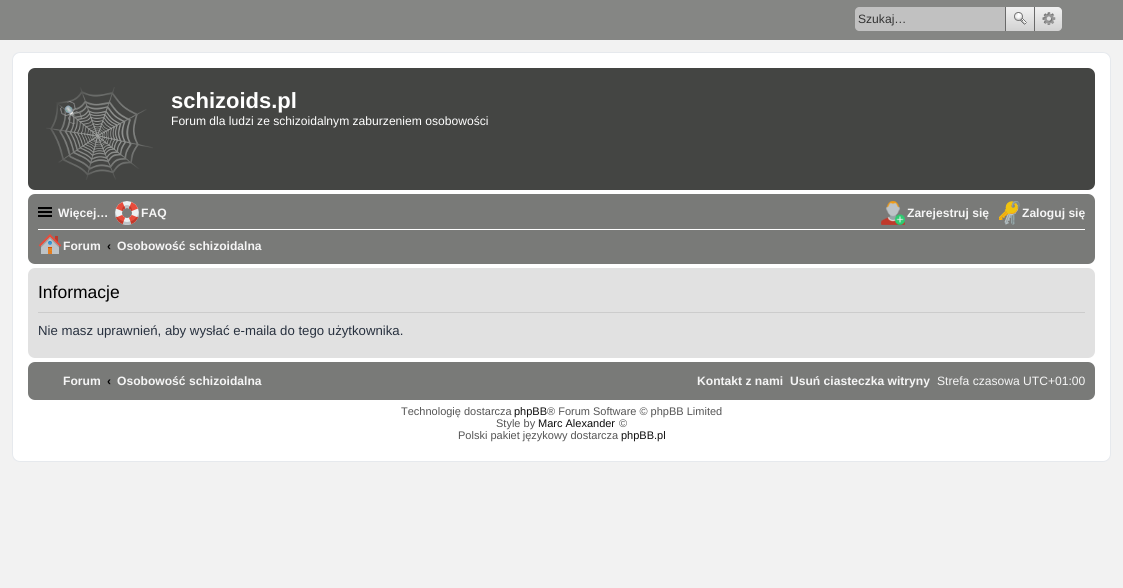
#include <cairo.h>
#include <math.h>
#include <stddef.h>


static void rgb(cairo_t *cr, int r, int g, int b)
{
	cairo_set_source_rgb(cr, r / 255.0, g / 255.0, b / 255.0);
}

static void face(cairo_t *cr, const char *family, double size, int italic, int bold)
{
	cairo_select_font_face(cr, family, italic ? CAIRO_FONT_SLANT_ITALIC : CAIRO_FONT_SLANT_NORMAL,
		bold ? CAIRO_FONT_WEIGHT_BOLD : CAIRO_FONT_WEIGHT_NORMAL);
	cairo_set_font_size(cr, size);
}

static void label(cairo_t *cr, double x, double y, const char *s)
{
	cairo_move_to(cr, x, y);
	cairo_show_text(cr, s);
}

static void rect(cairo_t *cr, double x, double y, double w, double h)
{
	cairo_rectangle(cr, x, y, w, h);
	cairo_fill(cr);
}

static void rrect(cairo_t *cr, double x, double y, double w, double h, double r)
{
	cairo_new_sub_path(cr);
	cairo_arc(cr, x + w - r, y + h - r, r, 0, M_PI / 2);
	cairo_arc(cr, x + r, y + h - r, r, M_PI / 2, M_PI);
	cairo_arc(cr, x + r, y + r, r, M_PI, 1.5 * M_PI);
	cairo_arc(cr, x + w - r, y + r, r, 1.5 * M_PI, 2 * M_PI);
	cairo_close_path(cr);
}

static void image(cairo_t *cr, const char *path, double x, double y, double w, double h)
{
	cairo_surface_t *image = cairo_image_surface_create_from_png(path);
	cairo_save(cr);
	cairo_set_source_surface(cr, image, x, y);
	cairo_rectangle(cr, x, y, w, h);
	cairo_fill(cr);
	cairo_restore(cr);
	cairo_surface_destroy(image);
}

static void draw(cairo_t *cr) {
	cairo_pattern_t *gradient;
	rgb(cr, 242, 242, 242);
	cairo_paint(cr);
	rgb(cr, 255, 255, 255);
	rrect(cr, 12.5, 52.5, 1098, 409, 7.5);
	cairo_fill_preserve(cr);
	rgb(cr, 230, 233, 237);
	cairo_set_line_width(cr, 1);
	cairo_stroke(cr);
	rgb(cr, 133, 134, 132);
	rect(cr, 0, 0, 1123, 40);
	rgb(cr, 193, 193, 193);
	cairo_new_path(cr);
	cairo_move_to(cr, 859, 7);
	cairo_line_to(cr, 1005, 7);
	cairo_line_to(cr, 1005, 31);
	cairo_line_to(cr, 859, 31);
	cairo_curve_to(cr, 857, 31, 855, 29, 855, 27);
	cairo_line_to(cr, 855, 11);
	cairo_curve_to(cr, 855, 9, 857, 7, 859, 7);
	cairo_close_path(cr);
	cairo_fill(cr);
	face(cr, "Liberation Sans", 12.1, 0, 0);
	rgb(cr, 51, 51, 51);
	label(cr, 858, 23, "Szukaj…");
	gradient = cairo_pattern_create_linear(1020, 7, 1020, 31);
	cairo_pattern_add_color_stop_rgba(gradient, 0, 0.945, 0.945, 0.945, 1);
	cairo_pattern_add_color_stop_rgba(gradient, 1, 0.824, 0.824, 0.824, 1);
	cairo_set_source(cr, gradient);
	cairo_pattern_destroy(gradient);
	rect(cr, 1006, 7, 28, 24);
	rgb(cr, 106, 106, 106);
	rect(cr, 1034, 7, 1, 24);
	rect(cr, 1005, 7, 1, 24);
	image(cr, "image0.png", 1014, 12, 13, 13);
	gradient = cairo_pattern_create_linear(1049, 7, 1049, 31);
	cairo_pattern_add_color_stop_rgba(gradient, 0, 0.945, 0.945, 0.945, 1);
	cairo_pattern_add_color_stop_rgba(gradient, 1, 0.824, 0.824, 0.824, 1);
	cairo_set_source(cr, gradient);
	cairo_pattern_destroy(gradient);
	cairo_new_path(cr);
	cairo_move_to(cr, 1035, 7);
	cairo_line_to(cr, 1058, 7);
	cairo_curve_to(cr, 1060, 7, 1062, 9, 1062, 11);
	cairo_line_to(cr, 1062, 27);
	cairo_curve_to(cr, 1062, 29, 1060, 31, 1058, 31);
	cairo_line_to(cr, 1035, 31);
	cairo_close_path(cr);
	cairo_fill(cr);
	image(cr, "image1.png", 1042, 12, 14, 13);
	rgb(cr, 68, 69, 67);
	rrect(cr, 28, 68, 1067, 122, 7);
	cairo_fill(cr);
	image(cr, "image2.png", 46, 87, 107, 93);
	face(cr, "Liberation Sans", 22, 0, 1);
	rgb(cr, 255, 255, 255);
	label(cr, 171, 108, "schizoids.pl");
	face(cr, "Liberation Sans", 12.1, 0, 0);
	label(cr, 171, 125, "Forum dla ludzi ze schizoidalnym zaburzeniem osobowości");
	rgb(cr, 121, 122, 120);
	rrect(cr, 28, 194, 1067, 70, 7);
	cairo_fill(cr);
	rgb(cr, 0, 0, 0);
	rect(cr, 38, 207, 14, 2);
	rect(cr, 38, 211, 14, 2);
	rect(cr, 38, 215, 14, 2);
	face(cr, "Liberation Sans", 12.1, 0, 1);
	rgb(cr, 245, 245, 245);
	label(cr, 58, 217, "Więcej…");
	image(cr, "image3.png", 115, 201, 24, 24);
	label(cr, 141, 217, "FAQ");
	image(cr, "image4.png", 881, 201, 24, 24);
	label(cr, 907, 217, "Zarejestruj się");
	image(cr, "image5.png", 999, 201, 21, 24);
	label(cr, 1022, 217, "Zaloguj się");
	rgb(cr, 255, 255, 255);
	rect(cr, 38, 229, 1047, 1);
	image(cr, "image6.png", 38, 234, 24, 20);
	rgb(cr, 245, 245, 245);
	label(cr, 63, 250, "Forum");
	rgb(cr, 0, 0, 0);
	label(cr, 107, 250, "‹");
	rgb(cr, 245, 245, 245);
	label(cr, 117, 250, "Osobowość schizoidalna");
	rgb(cr, 225, 225, 225);
	rrect(cr, 28, 268, 1067, 90, 7);
	cairo_fill(cr);
	rgb(cr, 204, 204, 204);
	rect(cr, 38, 312, 1047, 1);
	face(cr, "Liberation Sans", 17.5, 0, 0);
	rgb(cr, 0, 0, 0);
	label(cr, 38, 298, "Informacje");
	face(cr, "Liberation Sans", 13.2, 0, 0);
	rgb(cr, 40, 49, 63);
	label(cr, 38, 335, "Nie masz uprawnień, aby wysłać e-maila do tego użytkownika.");
	rgb(cr, 121, 122, 120);
	rrect(cr, 28, 362, 1067, 38, 7);
	cairo_fill(cr);
	face(cr, "Liberation Sans", 12.1, 0, 1);
	rgb(cr, 245, 245, 245);
	label(cr, 63, 385, "Forum");
	rgb(cr, 0, 0, 0);
	label(cr, 107, 385, "‹");
	rgb(cr, 245, 245, 245);
	label(cr, 117, 385, "Osobowość schizoidalna");
	label(cr, 697, 385, "Kontakt z nami");
	label(cr, 790, 385, "Usuń ciasteczka witryny");
	face(cr, "Liberation Sans", 12.1, 0, 0);
	label(cr, 937, 385, "Strefa czasowa UTC+01:00");
	face(cr, "Liberation Sans", 11, 0, 0);
	rgb(cr, 85, 85, 85);
	label(cr, 401, 415, "Technologię dostarcza");
	rgb(cr, 13, 13, 13);
	label(cr, 514, 415, "phpBB");
	rgb(cr, 85, 85, 85);
	label(cr, 547, 415, "® Forum Software © phpBB Limited");
	label(cr, 496, 427, "Style by");
	rgb(cr, 13, 13, 13);
	label(cr, 538, 427, "Marc Alexander");
	rgb(cr, 85, 85, 85);
	label(cr, 619, 427, "©");
	label(cr, 458, 439, "Polski pakiet językowy dostarcza");
	rgb(cr, 13, 13, 13);
	label(cr, 621, 439, "phpBB.pl");
}

int main(void) {
	cairo_surface_t *surface = cairo_image_surface_create(CAIRO_FORMAT_RGB24, 1123, 588);
	cairo_t *cr = cairo_create(surface);
	cairo_font_options_t *options = cairo_font_options_create();
	cairo_font_options_set_hint_metrics(options, CAIRO_HINT_METRICS_OFF);
	cairo_font_options_set_hint_style(options, CAIRO_HINT_STYLE_NONE);
	cairo_set_font_options(cr, options);
	cairo_set_miter_limit(cr, 4);
	draw(cr);
	cairo_surface_write_to_png(surface, "render.png");
	cairo_font_options_destroy(options);
	cairo_destroy(cr);
	cairo_surface_destroy(surface);
	return 0;
}
